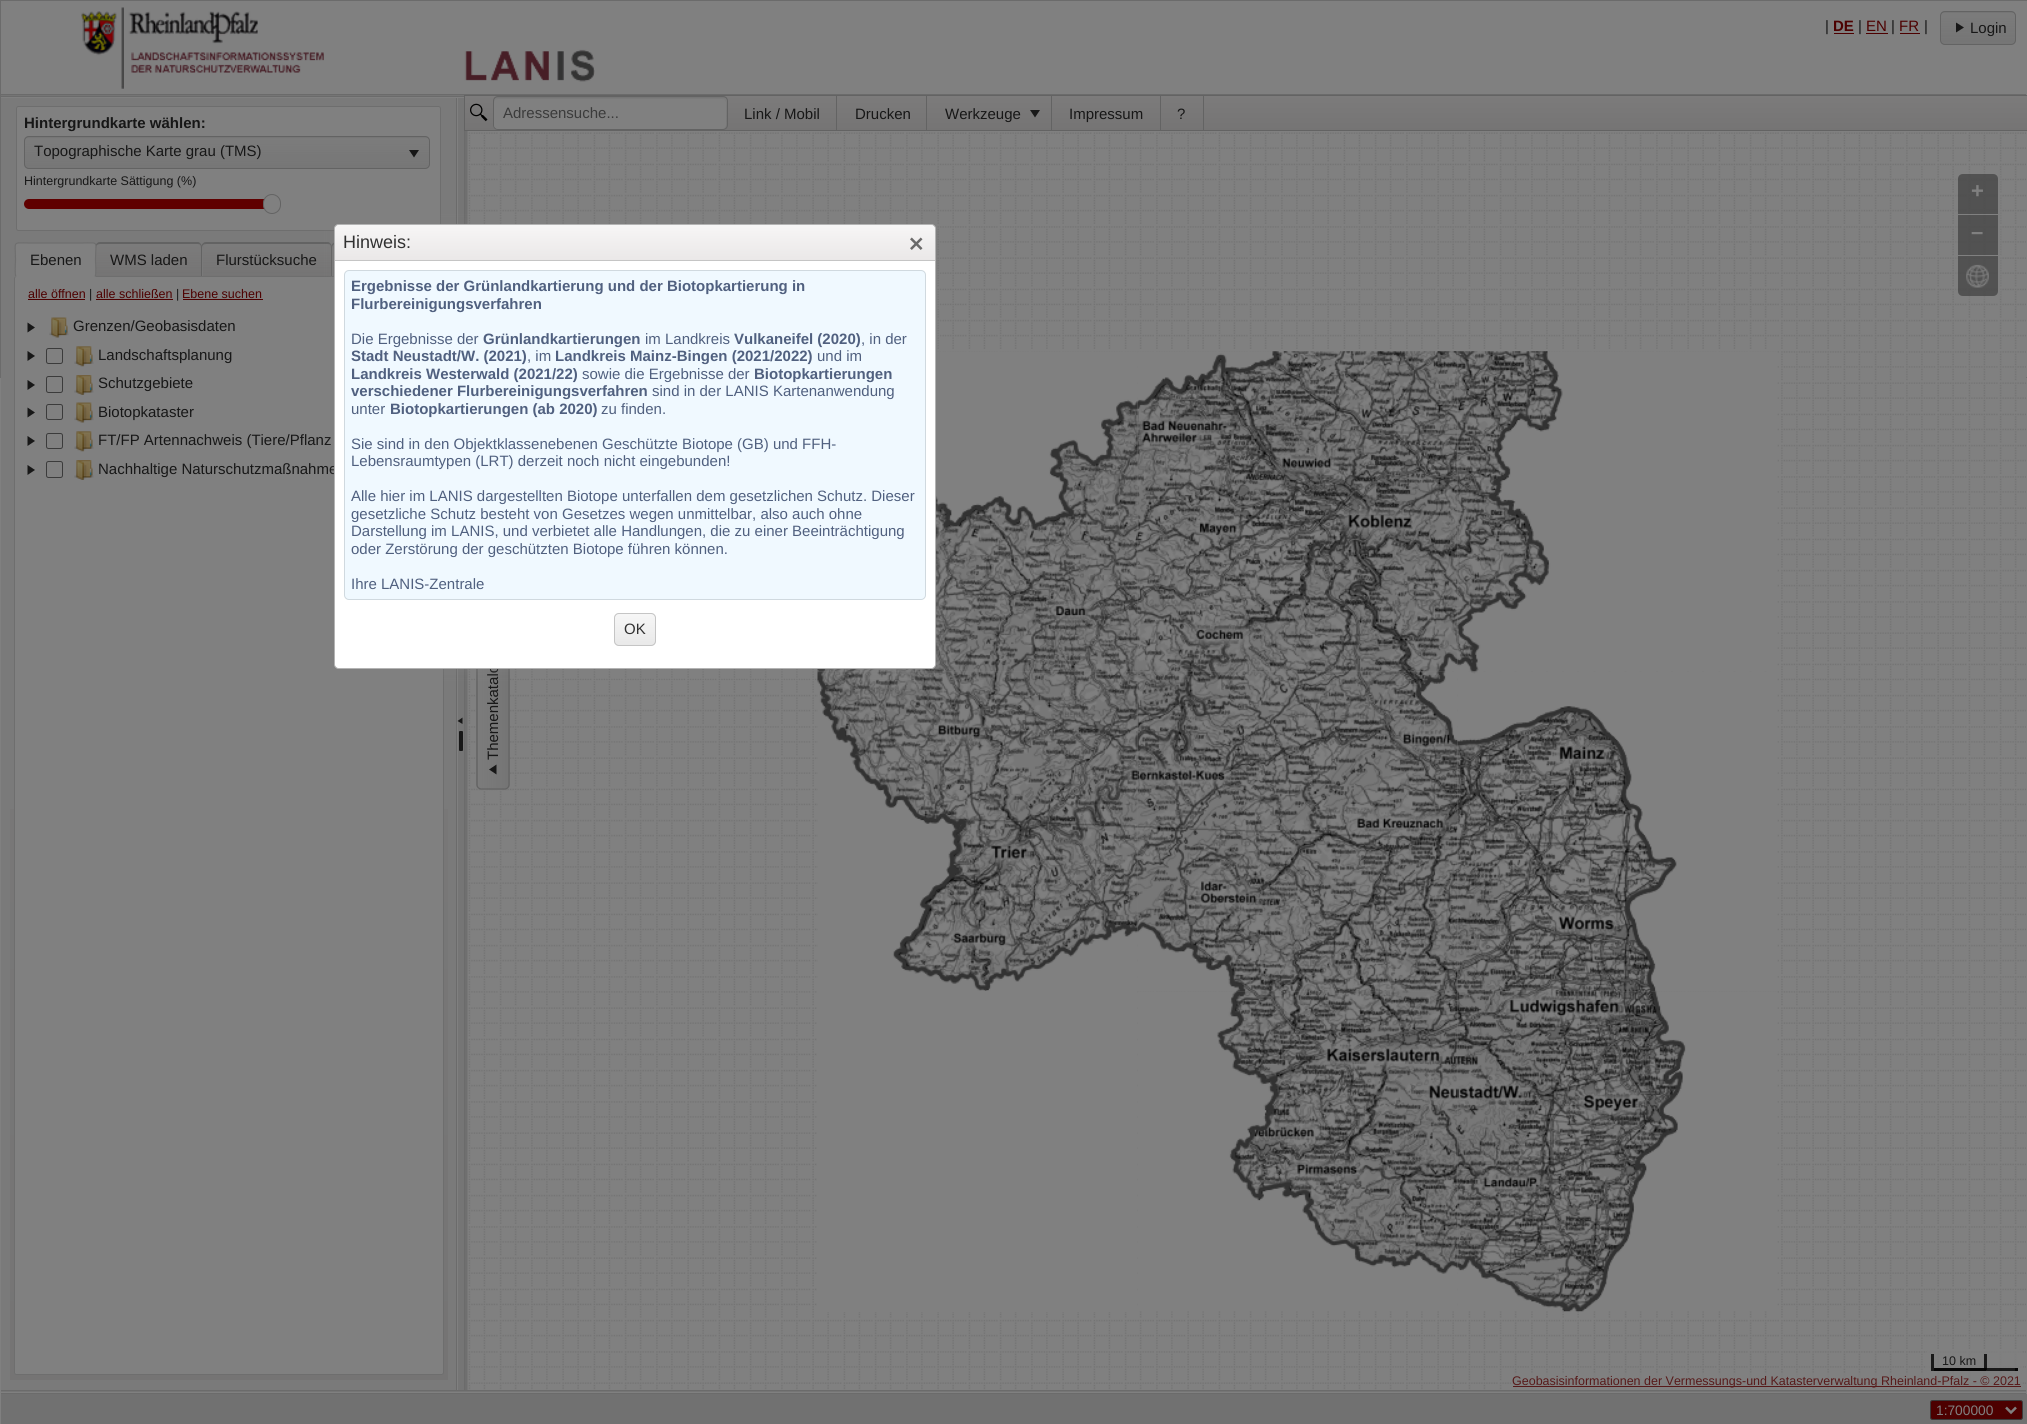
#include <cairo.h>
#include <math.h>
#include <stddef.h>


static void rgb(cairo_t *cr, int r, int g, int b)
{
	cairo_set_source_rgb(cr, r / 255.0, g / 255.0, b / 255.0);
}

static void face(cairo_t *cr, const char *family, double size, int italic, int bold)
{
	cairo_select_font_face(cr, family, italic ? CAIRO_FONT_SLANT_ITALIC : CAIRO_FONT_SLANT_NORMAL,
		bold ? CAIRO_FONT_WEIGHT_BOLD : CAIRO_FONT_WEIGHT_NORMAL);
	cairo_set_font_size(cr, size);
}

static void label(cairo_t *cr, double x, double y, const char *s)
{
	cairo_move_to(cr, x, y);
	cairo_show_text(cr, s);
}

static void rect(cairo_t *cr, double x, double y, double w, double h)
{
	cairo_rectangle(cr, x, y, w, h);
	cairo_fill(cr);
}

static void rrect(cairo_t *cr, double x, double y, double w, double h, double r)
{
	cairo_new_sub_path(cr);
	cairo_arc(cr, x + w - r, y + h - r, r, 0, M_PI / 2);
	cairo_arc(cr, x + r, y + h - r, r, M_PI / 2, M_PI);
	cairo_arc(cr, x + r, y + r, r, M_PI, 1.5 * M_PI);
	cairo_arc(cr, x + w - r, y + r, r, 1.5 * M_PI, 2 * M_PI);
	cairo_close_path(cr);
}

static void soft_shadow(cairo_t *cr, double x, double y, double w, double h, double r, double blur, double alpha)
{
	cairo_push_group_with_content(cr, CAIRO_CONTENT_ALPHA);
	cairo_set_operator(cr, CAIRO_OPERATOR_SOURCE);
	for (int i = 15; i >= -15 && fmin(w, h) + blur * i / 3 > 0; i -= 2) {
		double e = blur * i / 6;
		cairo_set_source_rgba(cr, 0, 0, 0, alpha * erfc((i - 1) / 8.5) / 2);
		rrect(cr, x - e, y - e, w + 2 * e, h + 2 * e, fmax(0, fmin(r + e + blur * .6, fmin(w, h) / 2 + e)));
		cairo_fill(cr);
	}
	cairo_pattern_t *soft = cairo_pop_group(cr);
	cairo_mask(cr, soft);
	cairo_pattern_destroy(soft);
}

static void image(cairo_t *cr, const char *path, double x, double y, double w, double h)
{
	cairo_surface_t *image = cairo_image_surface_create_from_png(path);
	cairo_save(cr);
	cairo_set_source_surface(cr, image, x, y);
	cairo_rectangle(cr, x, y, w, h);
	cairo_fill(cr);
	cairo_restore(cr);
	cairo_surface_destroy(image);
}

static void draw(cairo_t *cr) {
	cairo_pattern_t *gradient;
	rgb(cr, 128, 128, 128);
	cairo_paint(cr);
	cairo_rectangle(cr, 0.5, 0.5, 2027, 377);
	rgb(cr, 107, 107, 107);
	cairo_set_line_width(cr, 1);
	cairo_stroke(cr);
	image(cr, "image0.png", 81, 7, 514, 82);
	face(cr, "Liberation Sans", 15, 0, 0);
	rgb(cr, 23, 23, 23);
	label(cr, 1825, 31, "|");
	face(cr, "Liberation Sans", 15, 0, 1);
	rgb(cr, 77, 0, 0);
	label(cr, 1833, 31, "DE");
	rect(cr, 1834, 33, 20, 1);
	face(cr, "Liberation Sans", 15, 0, 0);
	rgb(cr, 23, 23, 23);
	label(cr, 1858, 31, "|");
	rgb(cr, 77, 0, 0);
	label(cr, 1866, 31, "EN");
	rect(cr, 1866, 33, 22, 1);
	rgb(cr, 23, 23, 23);
	label(cr, 1891, 31, "|");
	rgb(cr, 77, 0, 0);
	label(cr, 1899, 31, "FR");
	rect(cr, 1900, 33, 20, 1);
	rgb(cr, 23, 23, 23);
	label(cr, 1924, 31, "|");
	rgb(cr, 117, 117, 117);
	rrect(cr, 1940, 11, 76, 34, 5);
	cairo_fill(cr);
	cairo_save(cr);
	rrect(cr, 1940, 11, 76, 34, 5);
	cairo_clip(cr);
	gradient = cairo_pattern_create_linear(1978, 12, 1978, 44);
	cairo_pattern_add_color_stop_rgba(gradient, 0, 0.502, 0.502, 0.502, 0.6);
	cairo_pattern_add_color_stop_rgba(gradient, 1, 0.502, 0.502, 0.502, 0);
	cairo_set_source(cr, gradient);
	cairo_pattern_destroy(gradient);
	rect(cr, 1940, 13, 76, 30);
	cairo_restore(cr);
	rrect(cr, 1940.5, 11.5, 75, 33, 4.5);
	rgb(cr, 99, 99, 99);
	cairo_stroke(cr);
	rgb(cr, 23, 23, 23);
	cairo_new_path(cr);
	cairo_move_to(cr, 1964, 27.5);
	cairo_line_to(cr, 1956, 32.5);
	cairo_line_to(cr, 1956, 22.5);
	cairo_close_path(cr);
	cairo_fill(cr);
	label(cr, 1970, 33, "Login");
	rgb(cr, 117, 117, 117);
	rect(cr, 1, 95, 463, 1);
	rgb(cr, 107, 107, 107);
	rect(cr, 1, 94, 2025, 1);
	rect(cr, 1, 96, 463, 1);
	rgb(cr, 128, 128, 128);
	rect(cr, 457, 377, 1, 1);
	rgb(cr, 122, 122, 122);
	rect(cr, 1, 98, 455, 1292);
	rgb(cr, 128, 128, 128);
	rrect(cr, 16.5, 106.5, 424, 124, 2);
	cairo_fill_preserve(cr);
	rgb(cr, 110, 110, 110);
	cairo_stroke(cr);
	face(cr, "Liberation Sans", 15, 0, 1);
	rgb(cr, 23, 23, 23);
	label(cr, 24, 128, "Hintergrundkarte wählen:");
	rgb(cr, 118, 118, 118);
	rrect(cr, 24, 136, 406, 33, 5);
	cairo_fill(cr);
	cairo_save(cr);
	rrect(cr, 24, 136, 406, 33, 5);
	cairo_clip(cr);
	gradient = cairo_pattern_create_linear(227, 137, 227, 168);
	cairo_pattern_add_color_stop_rgba(gradient, 0, 0.502, 0.502, 0.502, 0.6);
	cairo_pattern_add_color_stop_rgba(gradient, 1, 0.502, 0.502, 0.502, 0);
	cairo_set_source(cr, gradient);
	cairo_pattern_destroy(gradient);
	rect(cr, 24, 138, 406, 29);
	cairo_restore(cr);
	rrect(cr, 24.5, 136.5, 405, 32, 4.5);
	rgb(cr, 99, 99, 99);
	cairo_stroke(cr);
	face(cr, "Liberation Sans", 15, 0, 0);
	rgb(cr, 23, 23, 23);
	label(cr, 34, 156, "Topographische Karte grau (TMS)");
	cairo_new_path(cr);
	cairo_move_to(cr, 414, 157.5);
	cairo_line_to(cr, 409, 150);
	cairo_line_to(cr, 419, 150);
	cairo_close_path(cr);
	cairo_fill(cr);
	face(cr, "Liberation Sans", 12.5, 0, 0);
	label(cr, 24, 185, "Hintergrundkarte Sättigung (%)");
	rgb(cr, 96, 0, 0);
	rrect(cr, 24, 199, 247, 10, 5);
	cairo_fill(cr);
	rgb(cr, 128, 128, 128);
	rrect(cr, 263.5, 194.5, 17, 19, 8.5);
	cairo_fill_preserve(cr);
	rgb(cr, 99, 99, 99);
	cairo_stroke(cr);
	gradient = cairo_pattern_create_linear(229, 238, 229, 1380);
	cairo_pattern_add_color_stop_rgba(gradient, 0, 0.482, 0.482, 0.482, 1);
	cairo_pattern_add_color_stop_rgba(gradient, 1, 0.459, 0.455, 0.455, 1);
	cairo_set_source(cr, gradient);
	cairo_pattern_destroy(gradient);
	rect(cr, 10, 809, 438, 571);
	rgb(cr, 117, 116, 116);
	cairo_new_path(cr);
	cairo_move_to(cr, 100, 244);
	cairo_line_to(cr, 197, 244);
	cairo_curve_to(cr, 199, 244, 201, 246, 201, 248);
	cairo_line_to(cr, 201, 276);
	cairo_line_to(cr, 96, 276);
	cairo_line_to(cr, 96, 248);
	cairo_curve_to(cr, 96, 246, 98, 244, 100, 244);
	cairo_close_path(cr);
	cairo_fill(cr);
	gradient = cairo_pattern_create_linear(149, 244, 149, 276);
	cairo_pattern_add_color_stop_rgba(gradient, 0, 0.502, 0.502, 0.502, 0.6);
	cairo_pattern_add_color_stop_rgba(gradient, 1, 0.502, 0.502, 0.502, 0);
	cairo_set_source(cr, gradient);
	cairo_pattern_destroy(gradient);
	cairo_new_path(cr);
	cairo_move_to(cr, 100, 244);
	cairo_line_to(cr, 197, 244);
	cairo_curve_to(cr, 199, 244, 201, 246, 201, 248);
	cairo_line_to(cr, 201, 276);
	cairo_line_to(cr, 96, 276);
	cairo_line_to(cr, 96, 248);
	cairo_curve_to(cr, 96, 246, 98, 244, 100, 244);
	cairo_close_path(cr);
	cairo_fill(cr);
	rgb(cr, 99, 99, 99);
	cairo_set_fill_rule(cr, CAIRO_FILL_RULE_EVEN_ODD);
	cairo_new_path(cr);
	cairo_move_to(cr, 100, 242);
	cairo_line_to(cr, 198, 242);
	cairo_curve_to(cr, 200, 242, 202, 245, 202, 248);
	cairo_line_to(cr, 202, 276);
	cairo_line_to(cr, 95, 276);
	cairo_line_to(cr, 95, 248);
	cairo_curve_to(cr, 95, 245, 97, 242, 100, 242);
	cairo_close_path(cr);
	cairo_move_to(cr, 100, 244);
	cairo_line_to(cr, 198, 244);
	cairo_curve_to(cr, 200, 244, 201, 245, 201, 248);
	cairo_line_to(cr, 201, 276);
	cairo_line_to(cr, 96, 276);
	cairo_line_to(cr, 96, 248);
	cairo_curve_to(cr, 96, 245, 98, 244, 100, 244);
	cairo_close_path(cr);
	cairo_fill(cr);
	rgb(cr, 128, 128, 128);
	rrect(cr, 14.5, 276.5, 429, 1098, 2);
	cairo_fill_preserve(cr);
	rgb(cr, 110, 110, 110);
	cairo_stroke(cr);
	rgb(cr, 128, 128, 128);
	rrect(cr, 15, 243, 81, 35, 2.5);
	cairo_fill(cr);
	cairo_new_path(cr);
	cairo_move_to(cr, 16, 276.5);
	cairo_curve_to(cr, 14.5, 275, 15.5, 262.5, 15.5, 260);
	cairo_curve_to(cr, 15.5, 240, 11.5, 243, 30, 243);
	cairo_line_to(cr, 81, 243);
	cairo_curve_to(cr, 100, 243, 95.5, 240, 95.5, 260);
	cairo_curve_to(cr, 95.5, 262.5, 96.5, 275, 95, 276.5);
	rgb(cr, 110, 110, 110);
	cairo_set_line_width(cr, 1.2);
	cairo_stroke(cr);
	face(cr, "Liberation Sans", 15, 0, 0);
	rgb(cr, 23, 23, 23);
	label(cr, 30, 265, "Ebenen");
	label(cr, 110, 265, "WMS laden");
	rgb(cr, 117, 116, 116);
	cairo_new_path(cr);
	cairo_move_to(cr, 207, 244);
	cairo_line_to(cr, 327, 244);
	cairo_curve_to(cr, 329, 244, 331, 246, 331, 248);
	cairo_line_to(cr, 331, 276);
	cairo_line_to(cr, 203, 276);
	cairo_line_to(cr, 203, 248);
	cairo_curve_to(cr, 203, 246, 205, 244, 207, 244);
	cairo_close_path(cr);
	cairo_fill(cr);
	gradient = cairo_pattern_create_linear(267, 244, 267, 276);
	cairo_pattern_add_color_stop_rgba(gradient, 0, 0.502, 0.502, 0.502, 0.6);
	cairo_pattern_add_color_stop_rgba(gradient, 1, 0.502, 0.502, 0.502, 0);
	cairo_set_source(cr, gradient);
	cairo_pattern_destroy(gradient);
	cairo_new_path(cr);
	cairo_move_to(cr, 207, 244);
	cairo_line_to(cr, 327, 244);
	cairo_curve_to(cr, 329, 244, 331, 246, 331, 248);
	cairo_line_to(cr, 331, 276);
	cairo_line_to(cr, 203, 276);
	cairo_line_to(cr, 203, 248);
	cairo_curve_to(cr, 203, 246, 205, 244, 207, 244);
	cairo_close_path(cr);
	cairo_fill(cr);
	rgb(cr, 99, 99, 99);
	cairo_new_path(cr);
	cairo_move_to(cr, 206, 242);
	cairo_line_to(cr, 328, 242);
	cairo_curve_to(cr, 330, 242, 332, 245, 332, 248);
	cairo_line_to(cr, 332, 276);
	cairo_line_to(cr, 201, 276);
	cairo_line_to(cr, 201, 248);
	cairo_curve_to(cr, 201, 245, 203, 242, 206, 242);
	cairo_close_path(cr);
	cairo_move_to(cr, 206, 244);
	cairo_line_to(cr, 328, 244);
	cairo_curve_to(cr, 330, 244, 331, 245, 331, 248);
	cairo_line_to(cr, 331, 276);
	cairo_line_to(cr, 202, 276);
	cairo_line_to(cr, 202, 248);
	cairo_curve_to(cr, 202, 245, 204, 244, 206, 244);
	cairo_close_path(cr);
	cairo_fill(cr);
	rgb(cr, 23, 23, 23);
	label(cr, 216, 265, "Flurstücksuche");
	rgb(cr, 117, 116, 116);
	cairo_new_path(cr);
	cairo_move_to(cr, 337, 244);
	cairo_line_to(cr, 412, 244);
	cairo_curve_to(cr, 414, 244, 416, 246, 416, 248);
	cairo_line_to(cr, 416, 276);
	cairo_line_to(cr, 333, 276);
	cairo_line_to(cr, 333, 248);
	cairo_curve_to(cr, 333, 246, 335, 244, 337, 244);
	cairo_close_path(cr);
	cairo_fill(cr);
	gradient = cairo_pattern_create_linear(374, 244, 374, 276);
	cairo_pattern_add_color_stop_rgba(gradient, 0, 0.502, 0.502, 0.502, 0.6);
	cairo_pattern_add_color_stop_rgba(gradient, 1, 0.502, 0.502, 0.502, 0);
	cairo_set_source(cr, gradient);
	cairo_pattern_destroy(gradient);
	cairo_new_path(cr);
	cairo_move_to(cr, 337, 244);
	cairo_line_to(cr, 412, 244);
	cairo_curve_to(cr, 414, 244, 416, 246, 416, 248);
	cairo_line_to(cr, 416, 276);
	cairo_line_to(cr, 333, 276);
	cairo_line_to(cr, 333, 248);
	cairo_curve_to(cr, 333, 246, 335, 244, 337, 244);
	cairo_close_path(cr);
	cairo_fill(cr);
	rgb(cr, 99, 99, 99);
	cairo_new_path(cr);
	cairo_move_to(cr, 336, 242);
	cairo_line_to(cr, 412, 242);
	cairo_curve_to(cr, 415, 242, 418, 245, 418, 248);
	cairo_line_to(cr, 418, 276);
	cairo_line_to(cr, 331, 276);
	cairo_line_to(cr, 331, 248);
	cairo_curve_to(cr, 331, 245, 333, 242, 336, 242);
	cairo_close_path(cr);
	cairo_move_to(cr, 336, 244);
	cairo_line_to(cr, 412, 244);
	cairo_curve_to(cr, 415, 244, 416, 245, 416, 248);
	cairo_line_to(cr, 416, 276);
	cairo_line_to(cr, 332, 276);
	cairo_line_to(cr, 332, 248);
	cairo_curve_to(cr, 332, 245, 334, 244, 336, 244);
	cairo_close_path(cr);
	cairo_fill(cr);
	face(cr, "Liberation Sans", 12.5, 0, 0);
	rgb(cr, 77, 0, 0);
	label(cr, 28, 298, "alle öffnen");
	rect(cr, 28, 299, 57, 1);
	rgb(cr, 23, 23, 23);
	label(cr, 89, 298, "|");
	rgb(cr, 77, 0, 0);
	label(cr, 96, 298, "alle schließen");
	rect(cr, 96, 299, 77, 1);
	rgb(cr, 23, 23, 23);
	label(cr, 176, 298, "|");
	rgb(cr, 77, 0, 0);
	label(cr, 182, 298, "Ebene suchen");
	rect(cr, 183, 299, 80, 1);
	rgb(cr, 23, 23, 23);
	cairo_set_fill_rule(cr, CAIRO_FILL_RULE_WINDING);
	cairo_new_path(cr);
	cairo_move_to(cr, 35, 327.5);
	cairo_line_to(cr, 27.5, 332.5);
	cairo_line_to(cr, 27.5, 322.5);
	cairo_close_path(cr);
	cairo_move_to(cr, 35, 356);
	cairo_line_to(cr, 27.5, 361);
	cairo_line_to(cr, 27.5, 351);
	cairo_close_path(cr);
	cairo_fill(cr);
	image(cr, "image1.png", 49, 317, 20, 21);
	face(cr, "Liberation Sans", 15, 0, 0);
	label(cr, 73, 331, "Grenzen/Geobasisdaten");
	rrect(cr, 46.5, 348.5, 16, 15, 2);
	rgb(cr, 59, 59, 59);
	cairo_set_line_width(cr, 1);
	cairo_stroke(cr);
	image(cr, "image2.png", 74, 346, 20, 21);
	rgb(cr, 23, 23, 23);
	label(cr, 98, 360, "Landschaftsplanung");
	cairo_new_path(cr);
	cairo_move_to(cr, 35, 385);
	cairo_line_to(cr, 27.5, 390);
	cairo_line_to(cr, 27.5, 380);
	cairo_close_path(cr);
	cairo_move_to(cr, 35, 412.5);
	cairo_line_to(cr, 27.5, 417.5);
	cairo_line_to(cr, 27.5, 407.5);
	cairo_close_path(cr);
	cairo_fill(cr);
	rrect(cr, 46.5, 376.5, 16, 16, 2);
	rgb(cr, 59, 59, 59);
	cairo_stroke(cr);
	image(cr, "image3.png", 74, 375, 20, 20);
	rgb(cr, 23, 23, 23);
	label(cr, 98, 388, "Schutzgebiete");
	rrect(cr, 46.5, 404.5, 16, 15, 2);
	rgb(cr, 59, 59, 59);
	cairo_stroke(cr);
	image(cr, "image1.png", 74, 402, 20, 21);
	rgb(cr, 23, 23, 23);
	label(cr, 98, 417, "Biotopkataster");
	cairo_new_path(cr);
	cairo_move_to(cr, 35, 441);
	cairo_line_to(cr, 27.5, 446);
	cairo_line_to(cr, 27.5, 436);
	cairo_close_path(cr);
	cairo_move_to(cr, 35, 470);
	cairo_line_to(cr, 27.5, 475);
	cairo_line_to(cr, 27.5, 465);
	cairo_close_path(cr);
	cairo_fill(cr);
	rrect(cr, 46.5, 433.5, 16, 15, 2);
	rgb(cr, 59, 59, 59);
	cairo_stroke(cr);
	image(cr, "image2.png", 74, 431, 20, 21);
	rgb(cr, 23, 23, 23);
	label(cr, 98, 445, "FT/FP Artennachweis (Tiere/Pflanz");
	rrect(cr, 46.5, 461.5, 16, 16, 2);
	rgb(cr, 59, 59, 59);
	cairo_stroke(cr);
	image(cr, "image3.png", 74, 460, 20, 20);
	rgb(cr, 23, 23, 23);
	label(cr, 98, 474, "Nachhaltige Naturschutzmaßnahme");
	rgb(cr, 117, 117, 117);
	rect(cr, 458, 98, 6, 1292);
	rgb(cr, 107, 107, 107);
	rect(cr, 464, 131, 1, 1259);
	rect(cr, 456, 98, 1, 1292);
	rgb(cr, 23, 23, 23);
	cairo_new_path(cr);
	cairo_move_to(cr, 457.5, 721);
	cairo_line_to(cr, 462.5, 717.5);
	cairo_line_to(cr, 462.5, 724);
	cairo_close_path(cr);
	cairo_fill(cr);
	rrect(cr, 459, 731, 4, 20, 1);
	cairo_fill(cr);
	rgb(cr, 111, 111, 111);
	rect(cr, 465, 131, 3, 1259);
	image(cr, "image4.png", 467, 131, 1560, 1259);
	image(cr, "image9.png", 1137, 671, 321, 321);
	image(cr, "image6.png", 1137, 351, 321, 321);
	image(cr, "image8.png", 817, 671, 321, 321);
	image(cr, "image5.png", 817, 351, 321, 321);
	image(cr, "image10.png", 1457, 671, 321, 321);
	image(cr, "image7.png", 1457, 351, 321, 321);
	rgb(cr, 128, 128, 128);
	rect(cr, 817, 991, 320, 321);
	image(cr, "image11.png", 1137, 991, 321, 321);
	image(cr, "image12.png", 1457, 991, 321, 321);
	cairo_set_source_rgba(cr, 0.502, 0.502, 0.502, 0.4);
	rrect(cr, 1954, 170, 47, 130, 5);
	cairo_fill(cr);
	cairo_set_source_rgba(cr, 0.275, 0.275, 0.275, 0.8);
	cairo_new_path(cr);
	cairo_move_to(cr, 1963, 174);
	cairo_line_to(cr, 1993, 174);
	cairo_curve_to(cr, 1996, 174, 1998, 176, 1998, 179);
	cairo_line_to(cr, 1998, 214);
	cairo_line_to(cr, 1958, 214);
	cairo_line_to(cr, 1958, 179);
	cairo_curve_to(cr, 1958, 176, 1960, 174, 1963, 174);
	cairo_close_path(cr);
	cairo_fill(cr);
	face(cr, "Liberation Sans", 22, 0, 1);
	rgb(cr, 128, 128, 128);
	label(cr, 1971, 198, "+");
	cairo_set_source_rgba(cr, 0.275, 0.275, 0.275, 0.8);
	rect(cr, 1958, 215, 40, 40);
	rgb(cr, 128, 128, 128);
	label(cr, 1971, 239, "–");
	cairo_set_source_rgba(cr, 0.275, 0.275, 0.275, 0.8);
	cairo_new_path(cr);
	cairo_move_to(cr, 1958, 256);
	cairo_line_to(cr, 1998, 256);
	cairo_line_to(cr, 1998, 291);
	cairo_curve_to(cr, 1998, 294, 1996, 296, 1993, 296);
	cairo_line_to(cr, 1963, 296);
	cairo_curve_to(cr, 1960, 296, 1958, 294, 1958, 291);
	cairo_close_path(cr);
	cairo_fill(cr);
	image(cr, "image13.png", 1966, 264, 23, 24);
	rgb(cr, 117, 117, 117);
	rect(cr, 1, 1391, 2025, 1);
	rgb(cr, 107, 107, 107);
	rect(cr, 1, 1390, 2025, 1);
	rect(cr, 1, 1393, 2025, 1);
	rgb(cr, 113, 113, 113);
	rect(cr, 1, 1394, 2026, 30);
	gradient = cairo_pattern_create_linear(1478, 96, 1478, 130);
	cairo_pattern_add_color_stop_rgba(gradient, 0, 0.486, 0.482, 0.482, 1);
	cairo_pattern_add_color_stop_rgba(gradient, 1, 0.459, 0.455, 0.455, 1);
	cairo_set_source(cr, gradient);
	cairo_pattern_destroy(gradient);
	rect(cr, 465, 96, 1562, 34);
	cairo_rectangle(cr, 464.5, 95.5, 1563, 35);
	rgb(cr, 99, 99, 99);
	cairo_stroke(cr);
	image(cr, "image14.png", 470, 103, 18, 19);
	rgb(cr, 118, 118, 118);
	rrect(cr, 493, 96, 235, 34, 5);
	cairo_fill(cr);
	cairo_save(cr);
	rrect(cr, 493, 96, 235, 34, 5);
	cairo_clip(cr);
	gradient = cairo_pattern_create_linear(610, 97, 610, 129);
	cairo_pattern_add_color_stop_rgba(gradient, 0, 0.502, 0.502, 0.502, 0.6);
	cairo_pattern_add_color_stop_rgba(gradient, 1, 0.502, 0.502, 0.502, 0);
	cairo_set_source(cr, gradient);
	cairo_pattern_destroy(gradient);
	rect(cr, 493, 98, 235, 30);
	cairo_restore(cr);
	rrect(cr, 493.5, 96.5, 234, 33, 4.5);
	rgb(cr, 99, 99, 99);
	cairo_stroke(cr);
	rgb(cr, 128, 128, 128);
	rrect(cr, 494, 99, 232, 30, 4);
	cairo_fill(cr);
	face(cr, "Liberation Sans", 15, 0, 0);
	rgb(cr, 59, 59, 59);
	label(cr, 503, 118, "Adressensuche...");
	rgb(cr, 99, 99, 99);
	rect(cr, 836, 96, 1, 34);
	rgb(cr, 23, 23, 23);
	label(cr, 744, 119, "Link / Mobil");
	rgb(cr, 99, 99, 99);
	rect(cr, 926, 96, 1, 34);
	rgb(cr, 23, 23, 23);
	label(cr, 855, 119, "Drucken");
	rgb(cr, 99, 99, 99);
	rect(cr, 1051, 96, 1, 34);
	rgb(cr, 23, 23, 23);
	label(cr, 945, 119, "Werkzeuge");
	rgb(cr, 25, 25, 25);
	cairo_new_path(cr);
	cairo_move_to(cr, 1035, 117.5);
	cairo_line_to(cr, 1030, 110);
	cairo_line_to(cr, 1040, 110);
	cairo_close_path(cr);
	cairo_fill(cr);
	rgb(cr, 99, 99, 99);
	rect(cr, 1160, 96, 1, 34);
	rgb(cr, 23, 23, 23);
	label(cr, 1069, 119, "Impressum");
	rgb(cr, 99, 99, 99);
	rect(cr, 1203, 96, 1, 34);
	rgb(cr, 23, 23, 23);
	label(cr, 1177, 119, "?");
	rgb(cr, 117, 117, 117);
	cairo_new_path(cr);
	cairo_move_to(cr, 476, 785);
	cairo_line_to(cr, 476, 631);
	cairo_curve_to(cr, 476, 628, 479, 626, 481, 626);
	cairo_line_to(cr, 505, 626);
	cairo_curve_to(cr, 507, 626, 510, 628, 510, 631);
	cairo_line_to(cr, 510, 785);
	cairo_curve_to(cr, 510, 787, 507, 790, 505, 790);
	cairo_line_to(cr, 481, 790);
	cairo_curve_to(cr, 479, 790, 476, 787, 476, 785);
	cairo_close_path(cr);
	cairo_fill(cr);
	gradient = cairo_pattern_create_linear(478, 708, 508, 708);
	cairo_pattern_add_color_stop_rgba(gradient, 0, 0.502, 0.502, 0.502, 0.6);
	cairo_pattern_add_color_stop_rgba(gradient, 1, 0.502, 0.502, 0.502, 0);
	cairo_set_source(cr, gradient);
	cairo_pattern_destroy(gradient);
	cairo_new_path(cr);
	cairo_move_to(cr, 478, 788);
	cairo_line_to(cr, 478, 627);
	cairo_curve_to(cr, 481, 625, 490, 626, 493, 626);
	cairo_curve_to(cr, 496, 626, 505, 625, 508, 628);
	cairo_line_to(cr, 508, 788);
	cairo_curve_to(cr, 505, 791, 496, 790, 493, 790);
	cairo_curve_to(cr, 490, 790, 481, 791, 478, 788);
	cairo_close_path(cr);
	cairo_fill(cr);
	cairo_new_path(cr);
	cairo_move_to(cr, 477, 784.5);
	cairo_line_to(cr, 477, 631);
	cairo_curve_to(cr, 477, 629, 479, 627, 481.5, 627);
	cairo_line_to(cr, 504.5, 627);
	cairo_curve_to(cr, 507, 627, 509, 629, 509, 631);
	cairo_line_to(cr, 509, 784.5);
	cairo_curve_to(cr, 509, 787, 507, 789, 504.5, 789);
	cairo_line_to(cr, 481.5, 789);
	cairo_curve_to(cr, 479, 789, 477, 787, 477, 784.5);
	cairo_close_path(cr);
	rgb(cr, 99, 99, 99);
	cairo_set_line_width(cr, 1.2);
	cairo_stroke(cr);
	rgb(cr, 23, 23, 23);
	cairo_save(cr);
	cairo_translate(cr, 498, 760);
	cairo_rotate(cr, -90 * M_PI / 180);
	label(cr, 0, 0, "Themenkatalog");
	cairo_restore(cr);
	cairo_new_path(cr);
	cairo_move_to(cr, 489, 769.5);
	cairo_line_to(cr, 496.5, 764.5);
	cairo_line_to(cr, 496.5, 774.5);
	cairo_close_path(cr);
	cairo_fill(cr);
	cairo_set_source_rgba(cr, 0.502, 0.502, 0.502, 0.8);
	rrect(cr, 1926, 1349, 97, 26, 5);
	cairo_fill(cr);
	cairo_set_source_rgba(cr, 0, 0, 0, 0.8);
	rect(cr, 1984, 1354, 3, 16);
	rect(cr, 1931, 1368, 55, 3);
	rect(cr, 1931, 1354, 3, 16);
	face(cr, "Liberation Sans", 12.5, 0, 0);
	rgb(cr, 23, 23, 23);
	label(cr, 1942, 1365, "10 km");
	cairo_set_source_rgba(cr, 0, 0, 0, 0.8);
	rect(cr, 1931, 1368, 87, 3);
	rgb(cr, 5, 5, 5);
	rect(cr, 2015, 1368, 3, 3);
	rgb(cr, 26, 26, 26);
	rect(cr, 1931, 1368, 3, 3);
	cairo_set_source_rgba(cr, 0.502, 0.502, 0.502, 0.8);
	rect(cr, 1511, 1373, 512, 16);
	rgb(cr, 87, 26, 26);
	rect(cr, 1513, 1386, 508, 1);
	label(cr, 1512, 1385, "Geobasisinformationen der Vermessungs-und Katasterverwaltung Rheinland-Pfalz - © 2021");
	rgb(cr, 77, 0, 0);
	rrect(cr, 1930.5, 1400.5, 92, 19, 2);
	cairo_fill_preserve(cr);
	rgb(cr, 59, 59, 59);
	cairo_set_line_width(cr, 1);
	cairo_stroke(cr);
	cairo_new_path(cr);
	cairo_move_to(cr, 2006, 1407.5);
	cairo_line_to(cr, 2011, 1412.5);
	cairo_line_to(cr, 2016, 1407.5);
	rgb(cr, 128, 128, 128);
	cairo_set_line_width(cr, 2.5);
	cairo_stroke(cr);
	face(cr, "Liberation Sans", 13.75, 0, 0);
	label(cr, 1936, 1415, "1:700000");
	rgb(cr, 128, 128, 128);
	soft_shadow(cr, 334, 224, 605, 447, 6, 4.5, 0.3);
	rgb(cr, 255, 255, 255);
	rrect(cr, 334, 224, 602, 445, 5);
	cairo_fill(cr);
	rrect(cr, 334.5, 224.5, 601, 444, 4.5);
	cairo_set_source_rgba(cr, 0, 0, 0, 0.3);
	cairo_set_line_width(cr, 1);
	cairo_stroke(cr);
	rgb(cr, 234, 232, 232);
	cairo_new_path(cr);
	cairo_move_to(cr, 340, 225);
	cairo_line_to(cr, 930, 225);
	cairo_curve_to(cr, 933, 225, 935, 227, 935, 230);
	cairo_line_to(cr, 935, 261);
	cairo_line_to(cr, 335, 261);
	cairo_line_to(cr, 335, 230);
	cairo_curve_to(cr, 335, 227, 337, 225, 340, 225);
	cairo_close_path(cr);
	cairo_fill(cr);
	gradient = cairo_pattern_create_linear(635, 225, 635, 260);
	cairo_pattern_add_color_stop_rgba(gradient, 0, 1, 1, 1, 0.6);
	cairo_pattern_add_color_stop_rgba(gradient, 1, 1, 1, 1, 0);
	cairo_set_source(cr, gradient);
	cairo_pattern_destroy(gradient);
	cairo_new_path(cr);
	cairo_move_to(cr, 340, 225);
	cairo_line_to(cr, 930, 225);
	cairo_curve_to(cr, 933, 225, 935, 227, 935, 230);
	cairo_line_to(cr, 935, 260);
	cairo_line_to(cr, 335, 260);
	cairo_line_to(cr, 335, 230);
	cairo_curve_to(cr, 335, 227, 337, 225, 340, 225);
	cairo_close_path(cr);
	cairo_fill(cr);
	rgb(cr, 197, 197, 197);
	rect(cr, 335, 260, 600, 1);
	face(cr, "Liberation Sans", 18, 0, 0);
	rgb(cr, 49, 49, 49);
	label(cr, 343, 248, "Hinweis:");
	image(cr, "image15.png", 910, 237, 13, 13);
	rgb(cr, 255, 255, 255);
	cairo_new_path(cr);
	cairo_move_to(cr, 335, 261);
	cairo_line_to(cr, 935, 261);
	cairo_line_to(cr, 935, 663);
	cairo_curve_to(cr, 935, 666, 933, 668, 930, 668);
	cairo_line_to(cr, 340, 668);
	cairo_curve_to(cr, 337, 668, 335, 666, 335, 663);
	cairo_close_path(cr);
	cairo_fill(cr);
	rgb(cr, 240, 249, 255);
	rrect(cr, 344.5, 270.5, 581, 329, 4.5);
	cairo_fill_preserve(cr);
	rgb(cr, 208, 217, 223);
	cairo_stroke(cr);
	face(cr, "Liberation Sans", 15, 0, 1);
	rgb(cr, 80, 96, 127);
	label(cr, 351, 291, "Ergebnisse der Grünlandkartierung und der Biotopkartierung in");
	label(cr, 351, 309, "Flurbereinigungsverfahren");
	face(cr, "Liberation Sans", 15, 0, 0);
	label(cr, 351, 344, "Die Ergebnisse der");
	face(cr, "Liberation Sans", 15, 0, 1);
	label(cr, 483, 344, "Grünlandkartierungen");
	face(cr, "Liberation Sans", 15, 0, 0);
	label(cr, 645, 344, "im Landkreis");
	face(cr, "Liberation Sans", 15, 0, 1);
	label(cr, 734, 344, "Vulkaneifel (2020)");
	face(cr, "Liberation Sans", 15, 0, 0);
	label(cr, 861, 344, ", in der");
	face(cr, "Liberation Sans", 15, 0, 1);
	label(cr, 351, 361, "Stadt Neustadt/W. (2021)");
	face(cr, "Liberation Sans", 15, 0, 0);
	label(cr, 527, 361, ", im");
	face(cr, "Liberation Sans", 15, 0, 1);
	label(cr, 555, 361, "Landkreis Mainz-Bingen (2021/2022)");
	face(cr, "Liberation Sans", 15, 0, 0);
	label(cr, 817, 361, "und im");
	face(cr, "Liberation Sans", 15, 0, 1);
	label(cr, 351, 379, "Landkreis Westerwald (2021/22)");
	face(cr, "Liberation Sans", 15, 0, 0);
	label(cr, 582, 379, "sowie die Ergebnisse der");
	face(cr, "Liberation Sans", 15, 0, 1);
	label(cr, 754, 379, "Biotopkartierungen");
	label(cr, 351, 396, "verschiedener Flurbereinigungsverfahren");
	face(cr, "Liberation Sans", 15, 0, 0);
	label(cr, 652, 396, "sind in der LANIS Kartenanwendung");
	label(cr, 351, 414, "unter");
	face(cr, "Liberation Sans", 15, 0, 1);
	label(cr, 390, 414, "Biotopkartierungen (ab 2020)");
	face(cr, "Liberation Sans", 15, 0, 0);
	label(cr, 601, 414, "zu finden.");
	label(cr, 351, 449, "Sie sind in den Objektklassenebenen Geschützte Biotope (GB) und FFH-");
	label(cr, 351, 466, "Lebensraumtypen (LRT) derzeit noch nicht eingebunden!");
	label(cr, 351, 501, "Alle hier im LANIS dargestellten Biotope unterfallen dem gesetzlichen Schutz. Dieser");
	label(cr, 351, 519, "gesetzliche Schutz besteht von Gesetzes wegen unmittelbar, also auch ohne");
	label(cr, 351, 536, "Darstellung im LANIS, und verbietet alle Handlungen, die zu einer Beeinträchtigung");
	label(cr, 351, 554, "oder Zerstörung der geschützten Biotope führen können.");
	label(cr, 351, 589, "Ihre LANIS-Zentrale");
	rgb(cr, 233, 233, 233);
	rrect(cr, 614, 613, 42, 33, 5);
	cairo_fill(cr);
	cairo_save(cr);
	rrect(cr, 614, 613, 42, 33, 5);
	cairo_clip(cr);
	gradient = cairo_pattern_create_linear(635, 614, 635, 645);
	cairo_pattern_add_color_stop_rgba(gradient, 0, 1, 1, 1, 0.6);
	cairo_pattern_add_color_stop_rgba(gradient, 1, 1, 1, 1, 0);
	cairo_set_source(cr, gradient);
	cairo_pattern_destroy(gradient);
	rect(cr, 614, 614, 42, 30);
	cairo_restore(cr);
	rrect(cr, 614.5, 613.5, 41, 32, 4.5);
	rgb(cr, 197, 197, 197);
	cairo_stroke(cr);
	rgb(cr, 49, 49, 49);
	label(cr, 624, 634, "OK");
}

int main(void) {
	cairo_surface_t *surface = cairo_image_surface_create(CAIRO_FORMAT_RGB24, 2027, 1424);
	cairo_t *cr = cairo_create(surface);
	cairo_font_options_t *options = cairo_font_options_create();
	cairo_font_options_set_hint_metrics(options, CAIRO_HINT_METRICS_OFF);
	cairo_font_options_set_hint_style(options, CAIRO_HINT_STYLE_NONE);
	cairo_set_font_options(cr, options);
	cairo_set_miter_limit(cr, 4);
	draw(cr);
	cairo_surface_write_to_png(surface, "render.png");
	cairo_font_options_destroy(options);
	cairo_destroy(cr);
	cairo_surface_destroy(surface);
	return 0;
}
